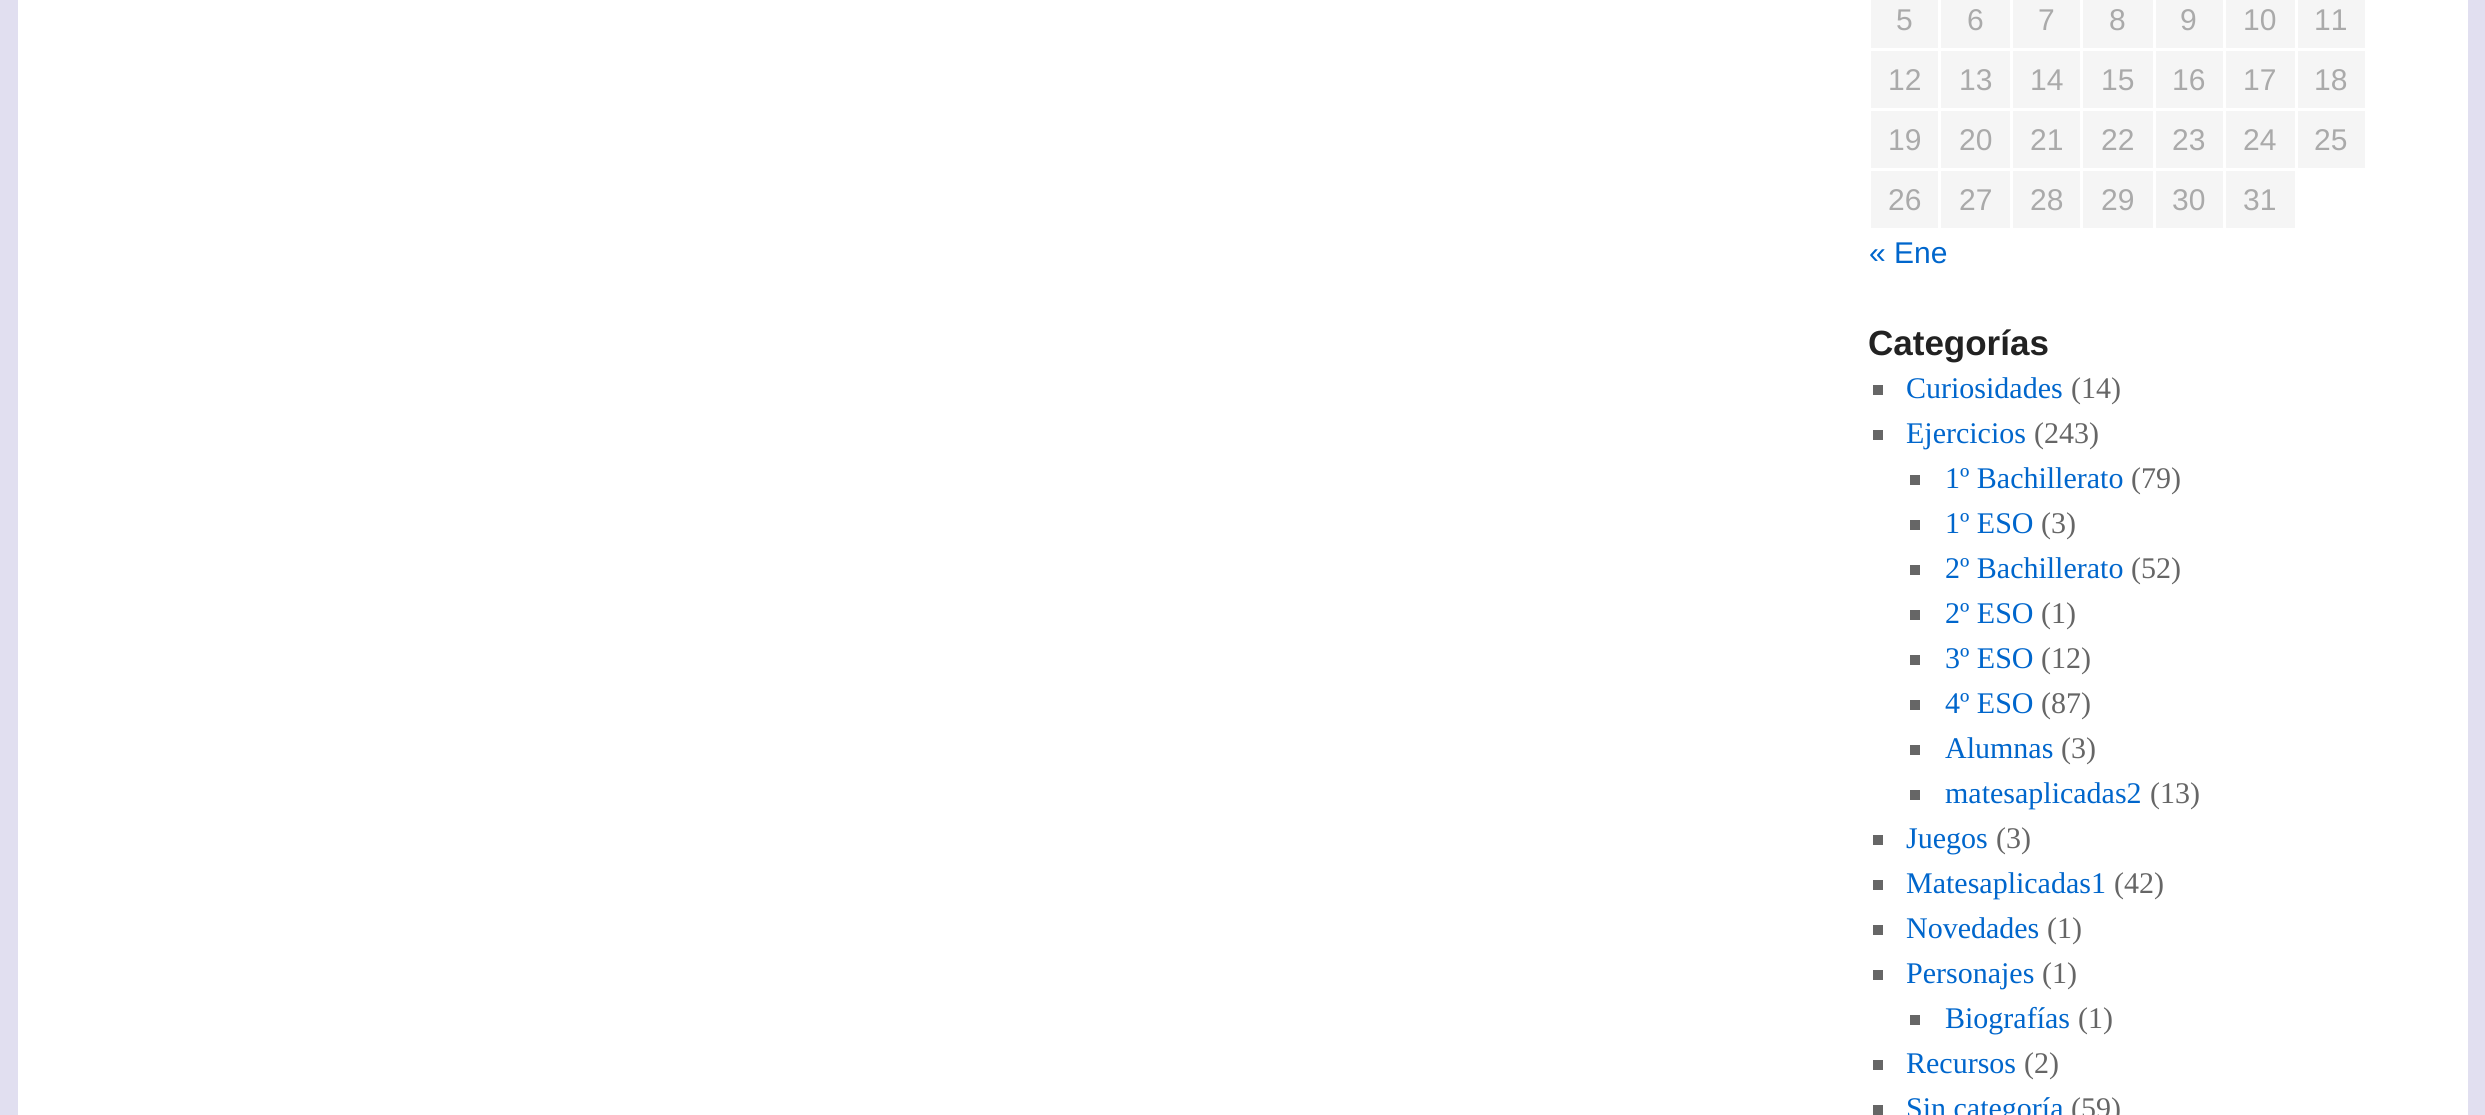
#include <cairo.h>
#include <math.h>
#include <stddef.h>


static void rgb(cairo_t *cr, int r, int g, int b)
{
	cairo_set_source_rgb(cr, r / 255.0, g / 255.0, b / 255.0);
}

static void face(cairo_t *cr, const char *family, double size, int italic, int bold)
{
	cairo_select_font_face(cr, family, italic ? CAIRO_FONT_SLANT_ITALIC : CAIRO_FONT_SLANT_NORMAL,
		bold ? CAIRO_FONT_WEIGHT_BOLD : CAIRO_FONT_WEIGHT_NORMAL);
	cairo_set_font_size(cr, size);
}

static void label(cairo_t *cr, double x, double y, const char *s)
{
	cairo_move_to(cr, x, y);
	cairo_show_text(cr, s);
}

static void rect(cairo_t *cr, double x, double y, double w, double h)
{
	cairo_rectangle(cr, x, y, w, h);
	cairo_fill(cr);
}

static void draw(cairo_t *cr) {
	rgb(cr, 225, 223, 240);
	cairo_paint(cr);
	rgb(cr, 255, 255, 255);
	rect(cr, 18, 0, 2450, 1115);
	rgb(cr, 245, 245, 245);
	rect(cr, 1871, 0, 67, 48);
	face(cr, "Liberation Sans", 30, 0, 0);
	rgb(cr, 170, 170, 170);
	label(cr, 1896, 30, "5");
	rgb(cr, 245, 245, 245);
	rect(cr, 1941, 0, 69, 48);
	rgb(cr, 170, 170, 170);
	label(cr, 1967, 30, "6");
	rgb(cr, 245, 245, 245);
	rect(cr, 2013, 0, 67, 48);
	rgb(cr, 170, 170, 170);
	label(cr, 2038, 30, "7");
	rgb(cr, 245, 245, 245);
	rect(cr, 2083, 0, 70, 48);
	rgb(cr, 170, 170, 170);
	label(cr, 2109, 30, "8");
	rgb(cr, 245, 245, 245);
	rect(cr, 2156, 0, 67, 48);
	rgb(cr, 170, 170, 170);
	label(cr, 2180, 30, "9");
	rgb(cr, 245, 245, 245);
	rect(cr, 2226, 0, 69, 48);
	rgb(cr, 170, 170, 170);
	label(cr, 2243, 30, "10");
	rgb(cr, 245, 245, 245);
	rect(cr, 2298, 0, 67, 48);
	rgb(cr, 170, 170, 170);
	label(cr, 2314, 30, "11");
	rgb(cr, 245, 245, 245);
	rect(cr, 1871, 51, 67, 57);
	rgb(cr, 170, 170, 170);
	label(cr, 1888, 90, "12");
	rgb(cr, 245, 245, 245);
	rect(cr, 1941, 51, 69, 57);
	rgb(cr, 170, 170, 170);
	label(cr, 1959, 90, "13");
	rgb(cr, 245, 245, 245);
	rect(cr, 2013, 51, 67, 57);
	rgb(cr, 170, 170, 170);
	label(cr, 2030, 90, "14");
	rgb(cr, 245, 245, 245);
	rect(cr, 2083, 51, 70, 57);
	rgb(cr, 170, 170, 170);
	label(cr, 2101, 90, "15");
	rgb(cr, 245, 245, 245);
	rect(cr, 2156, 51, 67, 57);
	rgb(cr, 170, 170, 170);
	label(cr, 2172, 90, "16");
	rgb(cr, 245, 245, 245);
	rect(cr, 2226, 51, 69, 57);
	rgb(cr, 170, 170, 170);
	label(cr, 2243, 90, "17");
	rgb(cr, 245, 245, 245);
	rect(cr, 2298, 51, 67, 57);
	rgb(cr, 170, 170, 170);
	label(cr, 2314, 90, "18");
	rgb(cr, 245, 245, 245);
	rect(cr, 1871, 111, 67, 57);
	rgb(cr, 170, 170, 170);
	label(cr, 1888, 150, "19");
	rgb(cr, 245, 245, 245);
	rect(cr, 1941, 111, 69, 57);
	rgb(cr, 170, 170, 170);
	label(cr, 1959, 150, "20");
	rgb(cr, 245, 245, 245);
	rect(cr, 2013, 111, 67, 57);
	rgb(cr, 170, 170, 170);
	label(cr, 2030, 150, "21");
	rgb(cr, 245, 245, 245);
	rect(cr, 2083, 111, 70, 57);
	rgb(cr, 170, 170, 170);
	label(cr, 2101, 150, "22");
	rgb(cr, 245, 245, 245);
	rect(cr, 2156, 111, 67, 57);
	rgb(cr, 170, 170, 170);
	label(cr, 2172, 150, "23");
	rgb(cr, 245, 245, 245);
	rect(cr, 2226, 111, 69, 57);
	rgb(cr, 170, 170, 170);
	label(cr, 2243, 150, "24");
	rgb(cr, 245, 245, 245);
	rect(cr, 2298, 111, 67, 57);
	rgb(cr, 170, 170, 170);
	label(cr, 2314, 150, "25");
	rgb(cr, 245, 245, 245);
	rect(cr, 1871, 171, 67, 57);
	rgb(cr, 170, 170, 170);
	label(cr, 1888, 210, "26");
	rgb(cr, 245, 245, 245);
	rect(cr, 1941, 171, 69, 57);
	rgb(cr, 170, 170, 170);
	label(cr, 1959, 210, "27");
	rgb(cr, 245, 245, 245);
	rect(cr, 2013, 171, 67, 57);
	rgb(cr, 170, 170, 170);
	label(cr, 2030, 210, "28");
	rgb(cr, 245, 245, 245);
	rect(cr, 2083, 171, 70, 57);
	rgb(cr, 170, 170, 170);
	label(cr, 2101, 210, "29");
	rgb(cr, 245, 245, 245);
	rect(cr, 2156, 171, 67, 57);
	rgb(cr, 170, 170, 170);
	label(cr, 2172, 210, "30");
	rgb(cr, 245, 245, 245);
	rect(cr, 2226, 171, 69, 57);
	rgb(cr, 170, 170, 170);
	label(cr, 2243, 210, "31");
	rgb(cr, 0, 102, 204);
	label(cr, 1869, 263, "« Ene");
	face(cr, "Liberation Sans", 35, 0, 1);
	rgb(cr, 34, 34, 34);
	label(cr, 1868, 355, "Categorías");
	rgb(cr, 102, 102, 102);
	rect(cr, 1873, 385, 10, 10);
	face(cr, "Liberation Serif", 30, 0, 0);
	rgb(cr, 0, 102, 204);
	label(cr, 1906, 398, "Curiosidades");
	rgb(cr, 102, 102, 102);
	label(cr, 2071, 398, "(14)");
	rect(cr, 1873, 430, 10, 10);
	rgb(cr, 0, 102, 204);
	label(cr, 1906, 443, "Ejercicios");
	rgb(cr, 102, 102, 102);
	label(cr, 2034, 443, "(243)");
	rect(cr, 1910, 475, 10, 10);
	rgb(cr, 0, 102, 204);
	label(cr, 1945, 488, "1º Bachillerato");
	rgb(cr, 102, 102, 102);
	label(cr, 2131, 488, "(79)");
	rect(cr, 1910, 520, 10, 10);
	rgb(cr, 0, 102, 204);
	label(cr, 1945, 533, "1º ESO");
	rgb(cr, 102, 102, 102);
	label(cr, 2041, 533, "(3)");
	rect(cr, 1910, 565, 10, 10);
	rgb(cr, 0, 102, 204);
	label(cr, 1945, 578, "2º Bachillerato");
	rgb(cr, 102, 102, 102);
	label(cr, 2131, 578, "(52)");
	rect(cr, 1910, 610, 10, 10);
	rgb(cr, 0, 102, 204);
	label(cr, 1945, 623, "2º ESO");
	rgb(cr, 102, 102, 102);
	label(cr, 2041, 623, "(1)");
	rect(cr, 1910, 655, 10, 10);
	rgb(cr, 0, 102, 204);
	label(cr, 1945, 668, "3º ESO");
	rgb(cr, 102, 102, 102);
	label(cr, 2041, 668, "(12)");
	rect(cr, 1910, 700, 10, 10);
	rgb(cr, 0, 102, 204);
	label(cr, 1945, 713, "4º ESO");
	rgb(cr, 102, 102, 102);
	label(cr, 2041, 713, "(87)");
	rect(cr, 1910, 745, 10, 10);
	rgb(cr, 0, 102, 204);
	label(cr, 1945, 758, "Alumnas");
	rgb(cr, 102, 102, 102);
	label(cr, 2061, 758, "(3)");
	rect(cr, 1910, 790, 10, 10);
	rgb(cr, 0, 102, 204);
	label(cr, 1945, 803, "matesaplicadas2");
	rgb(cr, 102, 102, 102);
	label(cr, 2150, 803, "(13)");
	rect(cr, 1873, 835, 10, 10);
	rgb(cr, 0, 102, 204);
	label(cr, 1906, 848, "Juegos");
	rgb(cr, 102, 102, 102);
	label(cr, 1996, 848, "(3)");
	rect(cr, 1873, 880, 10, 10);
	rgb(cr, 0, 102, 204);
	label(cr, 1906, 893, "Matesaplicadas1");
	rgb(cr, 102, 102, 102);
	label(cr, 2114, 893, "(42)");
	rect(cr, 1873, 925, 10, 10);
	rgb(cr, 0, 102, 204);
	label(cr, 1906, 938, "Novedades");
	rgb(cr, 102, 102, 102);
	label(cr, 2047, 938, "(1)");
	rect(cr, 1873, 970, 10, 10);
	rgb(cr, 0, 102, 204);
	label(cr, 1906, 983, "Personajes");
	rgb(cr, 102, 102, 102);
	label(cr, 2042, 983, "(1)");
	rect(cr, 1910, 1015, 10, 10);
	rgb(cr, 0, 102, 204);
	label(cr, 1945, 1028, "Biografías");
	rgb(cr, 102, 102, 102);
	label(cr, 2078, 1028, "(1)");
	rect(cr, 1873, 1060, 10, 10);
	rgb(cr, 0, 102, 204);
	label(cr, 1906, 1073, "Recursos");
	rgb(cr, 102, 102, 102);
	label(cr, 2024, 1073, "(2)");
	rect(cr, 1873, 1105, 10, 10);
	rgb(cr, 0, 102, 204);
	label(cr, 1906, 1118, "Sin categoría");
	rgb(cr, 102, 102, 102);
	label(cr, 2071, 1118, "(59)");
}

int main(void) {
	cairo_surface_t *surface = cairo_image_surface_create(CAIRO_FORMAT_RGB24, 2485, 1115);
	cairo_t *cr = cairo_create(surface);
	cairo_font_options_t *options = cairo_font_options_create();
	cairo_font_options_set_hint_metrics(options, CAIRO_HINT_METRICS_OFF);
	cairo_font_options_set_hint_style(options, CAIRO_HINT_STYLE_NONE);
	cairo_set_font_options(cr, options);
	cairo_set_miter_limit(cr, 4);
	draw(cr);
	cairo_surface_write_to_png(surface, "render.png");
	cairo_font_options_destroy(options);
	cairo_destroy(cr);
	cairo_surface_destroy(surface);
	return 0;
}
